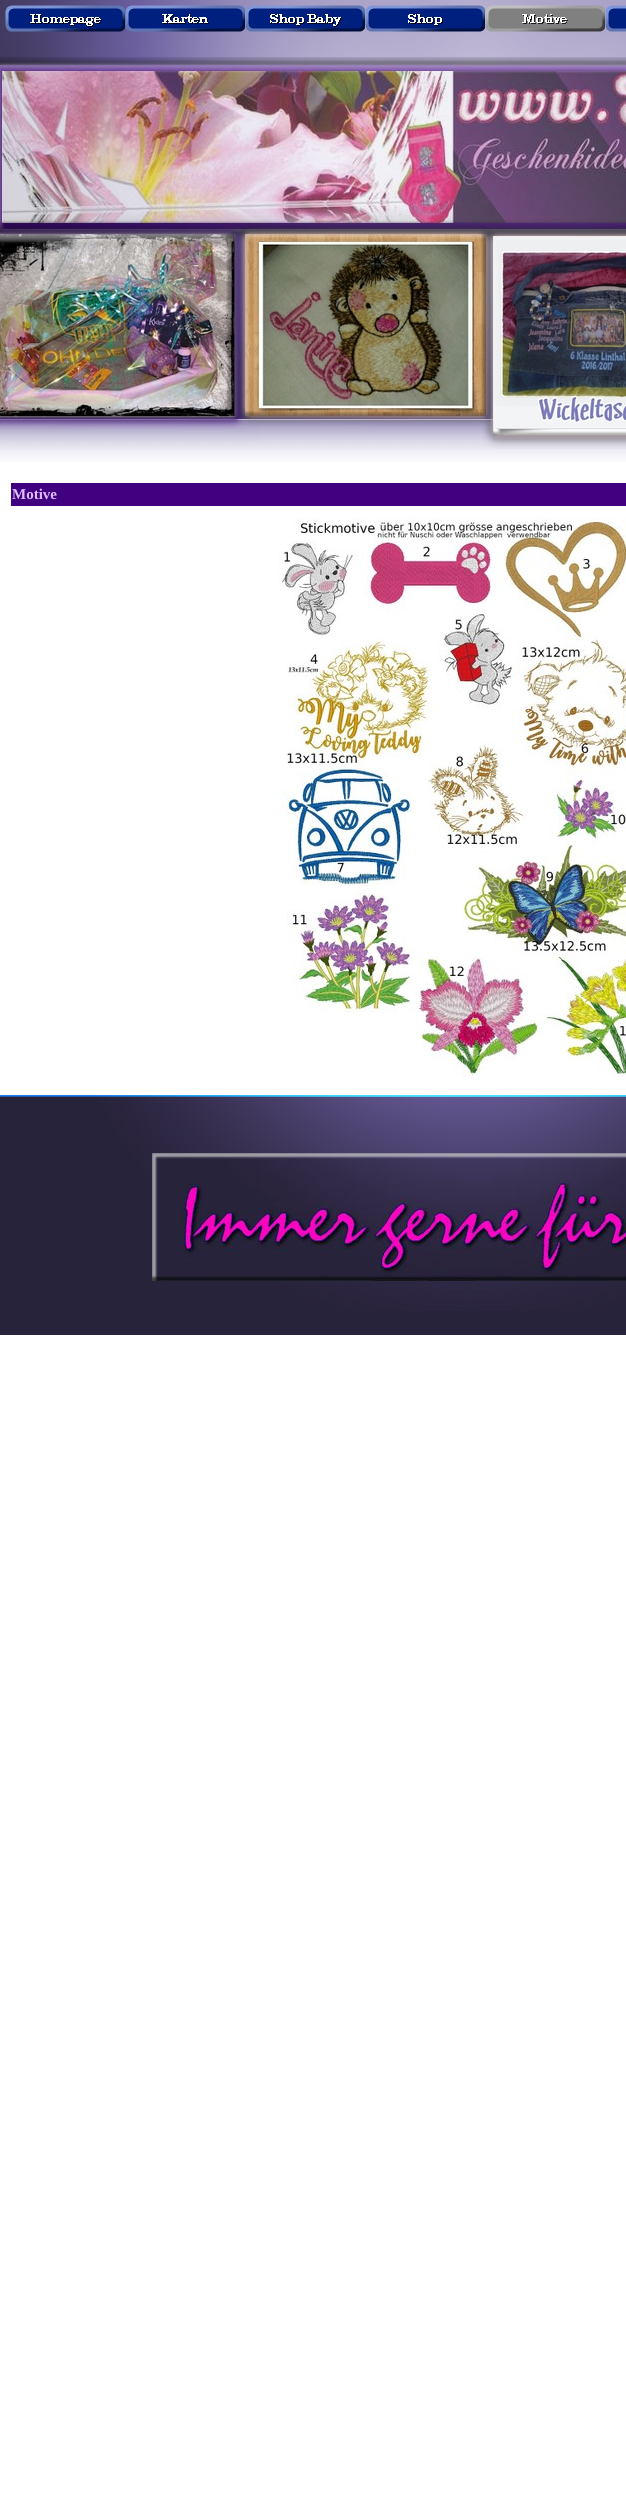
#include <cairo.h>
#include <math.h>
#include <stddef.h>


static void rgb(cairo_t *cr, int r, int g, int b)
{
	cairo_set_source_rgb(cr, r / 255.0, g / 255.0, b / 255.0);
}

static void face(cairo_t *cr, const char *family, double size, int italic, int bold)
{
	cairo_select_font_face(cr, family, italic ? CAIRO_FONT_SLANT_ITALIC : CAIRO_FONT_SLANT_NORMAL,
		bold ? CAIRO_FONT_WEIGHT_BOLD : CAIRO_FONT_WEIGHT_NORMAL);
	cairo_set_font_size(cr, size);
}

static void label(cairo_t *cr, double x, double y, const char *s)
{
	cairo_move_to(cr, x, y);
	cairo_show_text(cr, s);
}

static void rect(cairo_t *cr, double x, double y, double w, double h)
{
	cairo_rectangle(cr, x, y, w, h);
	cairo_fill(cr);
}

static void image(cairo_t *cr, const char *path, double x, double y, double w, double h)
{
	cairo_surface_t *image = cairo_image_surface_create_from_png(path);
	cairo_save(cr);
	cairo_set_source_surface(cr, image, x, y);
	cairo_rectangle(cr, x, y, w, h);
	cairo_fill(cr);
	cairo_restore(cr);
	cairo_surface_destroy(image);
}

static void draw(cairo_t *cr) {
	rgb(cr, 255, 255, 255);
	cairo_paint(cr);
	image(cr, "image0.png", 0, 449, 626, 13);
	image(cr, "image1.png", 0, 0, 626, 57);
	image(cr, "image2.png", 5, 5, 120, 27);
	image(cr, "image3.png", 125, 5, 120, 27);
	image(cr, "image4.png", 245, 5, 120, 27);
	image(cr, "image5.png", 365, 5, 120, 27);
	image(cr, "image6.png", 485, 5, 120, 27);
	image(cr, "image7.png", 605, 5, 21, 27);
	image(cr, "image8.png", 0, 57, 626, 392);
	rgb(cr, 64, 0, 128);
	rect(cr, 11, 483, 615, 23);
	face(cr, "Liberation Serif", 15, 0, 1);
	rgb(cr, 223, 191, 255);
	label(cr, 12, 499, "Motive");
	image(cr, "image9.png", 278, 517, 348, 560);
	image(cr, "image11.png", 0, 1095, 626, 240);
	image(cr, "image10.png", 99, 1095, 527, 216);
}

int main(void) {
	cairo_surface_t *surface = cairo_image_surface_create(CAIRO_FORMAT_RGB24, 626, 2495);
	cairo_t *cr = cairo_create(surface);
	cairo_font_options_t *options = cairo_font_options_create();
	cairo_font_options_set_hint_metrics(options, CAIRO_HINT_METRICS_OFF);
	cairo_font_options_set_hint_style(options, CAIRO_HINT_STYLE_NONE);
	cairo_set_font_options(cr, options);
	cairo_set_miter_limit(cr, 4);
	draw(cr);
	cairo_surface_write_to_png(surface, "render.png");
	cairo_font_options_destroy(options);
	cairo_destroy(cr);
	cairo_surface_destroy(surface);
	return 0;
}
